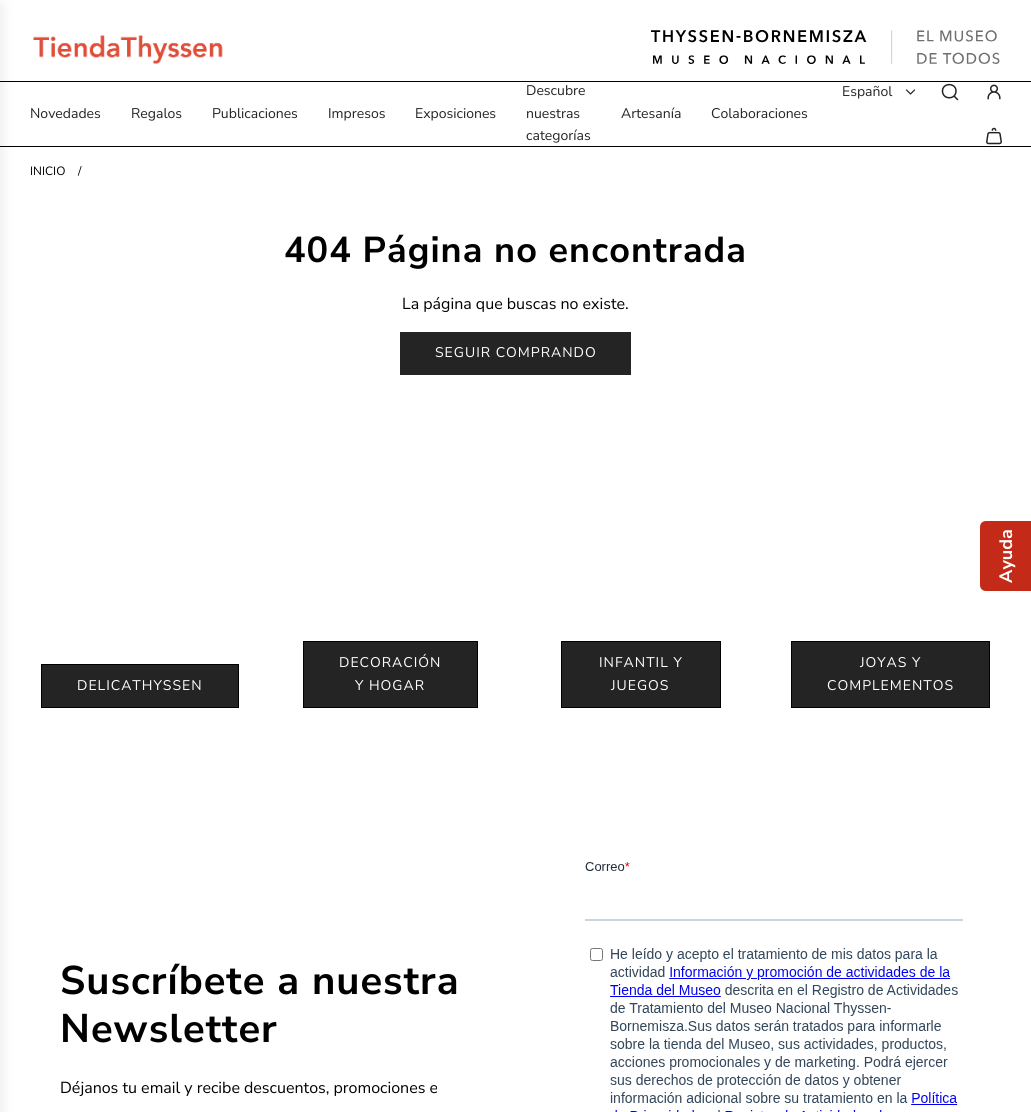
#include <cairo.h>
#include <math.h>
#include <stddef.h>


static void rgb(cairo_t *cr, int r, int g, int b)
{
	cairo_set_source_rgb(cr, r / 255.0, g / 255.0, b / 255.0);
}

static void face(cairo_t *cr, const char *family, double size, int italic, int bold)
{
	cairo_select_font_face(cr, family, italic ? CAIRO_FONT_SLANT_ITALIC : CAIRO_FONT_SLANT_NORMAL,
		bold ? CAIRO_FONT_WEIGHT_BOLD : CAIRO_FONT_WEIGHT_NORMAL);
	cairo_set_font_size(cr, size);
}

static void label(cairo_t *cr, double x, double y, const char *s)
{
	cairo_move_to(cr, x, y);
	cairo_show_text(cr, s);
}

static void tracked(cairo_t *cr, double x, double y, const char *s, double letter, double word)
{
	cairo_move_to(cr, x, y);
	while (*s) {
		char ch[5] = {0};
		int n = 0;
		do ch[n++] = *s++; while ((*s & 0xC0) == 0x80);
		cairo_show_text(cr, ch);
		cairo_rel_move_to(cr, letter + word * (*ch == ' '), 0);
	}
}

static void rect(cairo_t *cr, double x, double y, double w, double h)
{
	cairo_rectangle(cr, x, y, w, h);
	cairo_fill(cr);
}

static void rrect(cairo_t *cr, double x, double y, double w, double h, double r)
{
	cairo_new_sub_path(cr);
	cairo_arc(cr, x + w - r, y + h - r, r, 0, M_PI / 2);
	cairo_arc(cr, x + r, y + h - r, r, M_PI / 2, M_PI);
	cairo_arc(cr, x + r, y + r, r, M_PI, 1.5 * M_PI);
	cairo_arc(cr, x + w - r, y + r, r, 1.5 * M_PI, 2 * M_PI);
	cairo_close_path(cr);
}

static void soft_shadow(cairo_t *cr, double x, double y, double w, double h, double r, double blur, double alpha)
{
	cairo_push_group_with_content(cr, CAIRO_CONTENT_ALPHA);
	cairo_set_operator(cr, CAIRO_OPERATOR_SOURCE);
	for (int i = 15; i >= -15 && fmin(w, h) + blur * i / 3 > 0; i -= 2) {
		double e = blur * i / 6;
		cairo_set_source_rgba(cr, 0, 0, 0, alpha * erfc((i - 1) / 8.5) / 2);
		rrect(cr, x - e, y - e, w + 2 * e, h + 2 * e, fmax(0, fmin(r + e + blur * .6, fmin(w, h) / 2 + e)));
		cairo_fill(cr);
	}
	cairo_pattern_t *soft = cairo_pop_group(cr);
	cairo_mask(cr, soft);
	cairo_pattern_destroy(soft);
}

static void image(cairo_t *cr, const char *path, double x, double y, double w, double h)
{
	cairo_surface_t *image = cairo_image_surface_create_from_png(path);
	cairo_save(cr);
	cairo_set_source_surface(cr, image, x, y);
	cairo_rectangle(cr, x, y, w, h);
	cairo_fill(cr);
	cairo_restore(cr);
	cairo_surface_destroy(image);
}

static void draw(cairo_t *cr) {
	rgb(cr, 255, 255, 255);
	cairo_paint(cr);
	cairo_rectangle(cr, -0.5, 81.5, 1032, 65);
	rgb(cr, 0, 0, 0);
	cairo_set_line_width(cr, 1);
	cairo_stroke(cr);
	rgb(cr, 0, 0, 0);
	soft_shadow(cr, -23, 5, 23, 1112, 0, 7.5, 0.1);
	image(cr, "image0.png", 33, 35, 190, 29);
	image(cr, "image1.png", 651, 30, 349, 34);
	face(cr, "Nunito Sans", 14, 0, 0);
	rgb(cr, 36, 36, 36);
	label(cr, 30, 118, "Novedades");
	label(cr, 131, 118, "Regalos");
	label(cr, 212, 118, "Publicaciones");
	label(cr, 328, 118, "Impresos");
	label(cr, 415, 118, "Exposiciones");
	label(cr, 526, 95, "Descubre");
	label(cr, 526, 118, "nuestras");
	label(cr, 526, 140, "categorías");
	label(cr, 621, 118, "Artesanía");
	label(cr, 711, 118, "Colaboraciones");
	label(cr, 842, 96, "Español");
	cairo_new_path(cr);
	cairo_move_to(cr, 906.5, 90);
	cairo_line_to(cr, 910.5, 94);
	cairo_line_to(cr, 914.5, 90);
	cairo_set_line_width(cr, 1.2);
	cairo_set_line_cap(cr, CAIRO_LINE_CAP_ROUND);
	cairo_set_line_join(cr, CAIRO_LINE_JOIN_ROUND);
	cairo_stroke(cr);
	cairo_new_path(cr);
	cairo_move_to(cr, 954, 96);
	cairo_line_to(cr, 957.5, 99.5);
	cairo_move_to(cr, 942.5, 91);
	cairo_curve_to(cr, 942.5, 100, 956, 100, 956, 91);
	cairo_curve_to(cr, 956, 82.5, 942.5, 82.5, 942.5, 91);
	cairo_close_path(cr);
	cairo_set_line_width(cr, 1.5);
	cairo_stroke(cr);
	image(cr, "image2.png", 987, 84, 14, 16);
	image(cr, "image3.png", 986, 127, 16, 18);
	face(cr, "Nunito Sans", 12, 0, 0);
	rgb(cr, 0, 0, 0);
	label(cr, 30, 175, "INICIO");
	label(cr, 78, 175, "/");
	face(cr, "Nunito Sans", 36, 0, 1);
	tracked(cr, 284, 262, "404 Página no encontrada", 1, 0);
	face(cr, "Nunito Sans", 16, 0, 0);
	label(cr, 402, 309, "La página que buscas no existe.");
	rgb(cr, 36, 36, 36);
	rect(cr, 400, 332, 231, 43);
	face(cr, "Nunito Sans", 14, 0, 0);
	rgb(cr, 255, 255, 255);
	tracked(cr, 435, 357, "SEGUIR COMPRANDO", 1, 0);
	rgb(cr, 36, 36, 36);
	cairo_rectangle(cr, 41.5, 664.5, 197, 43);
	cairo_fill_preserve(cr);
	rgb(cr, 0, 0, 0);
	cairo_set_line_width(cr, 1);
	cairo_set_line_cap(cr, CAIRO_LINE_CAP_BUTT);
	cairo_set_line_join(cr, CAIRO_LINE_JOIN_MITER);
	cairo_stroke(cr);
	rgb(cr, 255, 255, 255);
	tracked(cr, 77, 690, "DELICATHYSSEN", 1, 0);
	rgb(cr, 36, 36, 36);
	cairo_rectangle(cr, 303.5, 641.5, 174, 66);
	cairo_fill_preserve(cr);
	rgb(cr, 0, 0, 0);
	cairo_stroke(cr);
	rgb(cr, 255, 255, 255);
	tracked(cr, 339, 667, "DECORACIÓN", 1, 0);
	tracked(cr, 355, 690, "Y HOGAR", 1, 0);
	rgb(cr, 36, 36, 36);
	cairo_rectangle(cr, 561.5, 641.5, 159, 66);
	cairo_fill_preserve(cr);
	rgb(cr, 0, 0, 0);
	cairo_stroke(cr);
	rgb(cr, 255, 255, 255);
	tracked(cr, 599, 667, "INFANTIL Y", 1, 0);
	tracked(cr, 611, 690, "JUEGOS", 1, 0);
	rgb(cr, 36, 36, 36);
	cairo_rectangle(cr, 791.5, 641.5, 198, 66);
	cairo_fill_preserve(cr);
	rgb(cr, 0, 0, 0);
	cairo_stroke(cr);
	rgb(cr, 255, 255, 255);
	tracked(cr, 860, 667, "JOYAS Y", 1, 0);
	tracked(cr, 827, 690, "COMPLEMENTOS", 1, 0);
	rgb(cr, 195, 43, 24);
	cairo_new_path(cr);
	cairo_move_to(cr, 980, 585);
	cairo_line_to(cr, 980, 527);
	cairo_curve_to(cr, 980, 524, 982, 521, 986, 521);
	cairo_line_to(cr, 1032, 521);
	cairo_line_to(cr, 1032, 591);
	cairo_line_to(cr, 986, 591);
	cairo_curve_to(cr, 982, 591, 980, 588, 980, 585);
	cairo_close_path(cr);
	cairo_fill(cr);
	face(cr, "Nunito Sans", 18, 0, 1);
	rgb(cr, 255, 255, 255);
	cairo_save(cr);
	cairo_translate(cr, 1012, 583);
	cairo_rotate(cr, -90 * M_PI / 180);
	label(cr, 0, 0, "Ayuda");
	cairo_restore(cr);
	face(cr, "Nunito Sans", 40, 0, 1);
	rgb(cr, 0, 0, 0);
	tracked(cr, 60, 994, "Suscríbete a nuestra", 1, 0);
	tracked(cr, 60, 1042, "Newsletter", 1, 0);
	face(cr, "Nunito Sans", 16, 0, 0);
	label(cr, 60, 1093, "Déjanos tu email y recibe descuentos, promociones e");
	image(cr, "image4.png", 585, 862, 378, 250);
}

int main(void) {
	cairo_surface_t *surface = cairo_image_surface_create(CAIRO_FORMAT_RGB24, 1031, 1112);
	cairo_t *cr = cairo_create(surface);
	cairo_font_options_t *options = cairo_font_options_create();
	cairo_font_options_set_hint_metrics(options, CAIRO_HINT_METRICS_OFF);
	cairo_font_options_set_hint_style(options, CAIRO_HINT_STYLE_NONE);
	cairo_set_font_options(cr, options);
	cairo_set_miter_limit(cr, 4);
	draw(cr);
	cairo_surface_write_to_png(surface, "render.png");
	cairo_font_options_destroy(options);
	cairo_destroy(cr);
	cairo_surface_destroy(surface);
	return 0;
}
